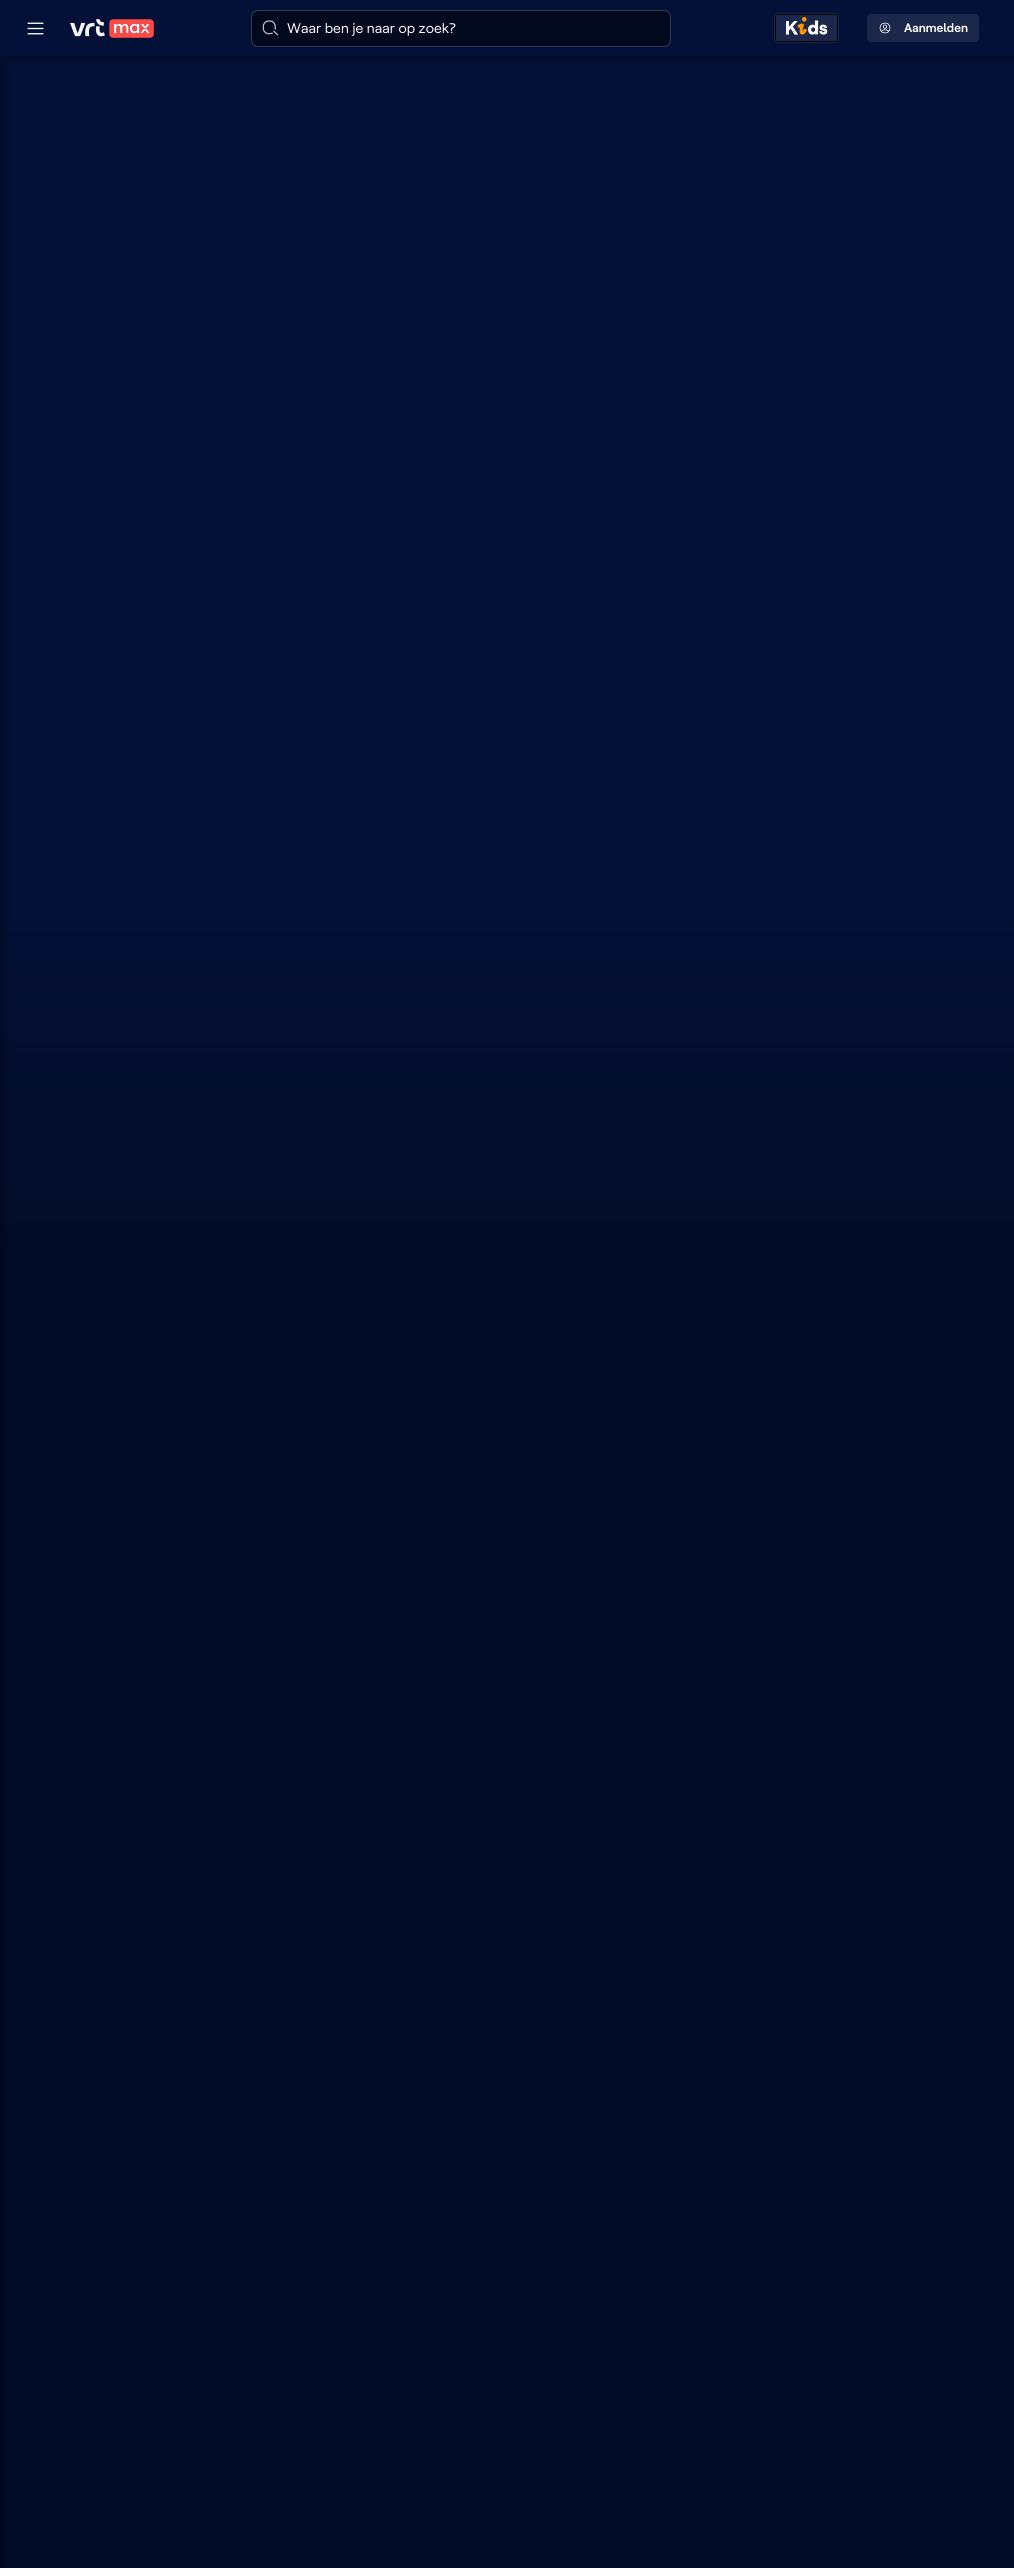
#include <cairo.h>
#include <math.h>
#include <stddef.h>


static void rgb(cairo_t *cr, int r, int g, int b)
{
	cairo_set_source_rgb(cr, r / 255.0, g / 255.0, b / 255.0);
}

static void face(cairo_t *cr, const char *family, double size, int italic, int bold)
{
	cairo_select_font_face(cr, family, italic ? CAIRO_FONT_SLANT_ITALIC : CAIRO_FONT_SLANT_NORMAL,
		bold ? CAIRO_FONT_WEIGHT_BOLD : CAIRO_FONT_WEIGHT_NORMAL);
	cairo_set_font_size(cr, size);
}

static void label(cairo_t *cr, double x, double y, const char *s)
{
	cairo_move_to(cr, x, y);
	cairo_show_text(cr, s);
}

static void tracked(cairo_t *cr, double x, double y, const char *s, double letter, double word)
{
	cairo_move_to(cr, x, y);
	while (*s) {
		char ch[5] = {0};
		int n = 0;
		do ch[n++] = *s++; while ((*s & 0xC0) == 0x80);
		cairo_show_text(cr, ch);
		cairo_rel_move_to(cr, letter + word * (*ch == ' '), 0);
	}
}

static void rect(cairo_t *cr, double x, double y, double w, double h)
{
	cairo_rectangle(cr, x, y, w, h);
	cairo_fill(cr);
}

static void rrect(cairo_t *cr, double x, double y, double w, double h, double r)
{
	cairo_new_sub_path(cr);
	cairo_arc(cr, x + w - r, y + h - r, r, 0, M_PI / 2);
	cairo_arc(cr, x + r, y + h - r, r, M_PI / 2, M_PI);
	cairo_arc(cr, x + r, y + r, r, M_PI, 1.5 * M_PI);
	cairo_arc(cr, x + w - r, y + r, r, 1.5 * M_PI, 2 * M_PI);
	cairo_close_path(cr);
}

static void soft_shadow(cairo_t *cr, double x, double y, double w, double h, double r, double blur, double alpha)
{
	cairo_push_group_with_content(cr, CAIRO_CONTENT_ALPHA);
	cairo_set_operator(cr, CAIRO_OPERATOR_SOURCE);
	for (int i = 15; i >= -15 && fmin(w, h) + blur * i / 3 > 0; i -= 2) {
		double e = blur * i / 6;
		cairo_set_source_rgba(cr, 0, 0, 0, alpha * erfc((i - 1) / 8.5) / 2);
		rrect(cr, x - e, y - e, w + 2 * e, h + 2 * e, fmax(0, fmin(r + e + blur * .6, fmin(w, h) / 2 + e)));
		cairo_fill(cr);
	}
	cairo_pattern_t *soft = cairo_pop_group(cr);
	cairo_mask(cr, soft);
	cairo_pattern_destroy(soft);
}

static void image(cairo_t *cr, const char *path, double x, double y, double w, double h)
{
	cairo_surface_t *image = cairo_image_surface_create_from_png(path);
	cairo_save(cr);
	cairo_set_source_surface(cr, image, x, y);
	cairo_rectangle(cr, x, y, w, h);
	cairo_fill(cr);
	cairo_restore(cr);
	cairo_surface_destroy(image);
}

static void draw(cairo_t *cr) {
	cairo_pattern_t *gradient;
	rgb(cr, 2, 11, 38);
	cairo_paint(cr);
	rgb(cr, 3, 16, 55);
	rect(cr, 0, 56, 1014, 1234);
	rgb(cr, 0, 0, 0);
	soft_shadow(cr, 4, 53, 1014, 7, 0, 3.5, 0.3);
	gradient = cairo_pattern_create_linear(507, 1341, 507, 860);
	cairo_pattern_add_color_stop_rgba(gradient, 0.1, 0.008, 0.043, 0.149, 1);
	cairo_pattern_add_color_stop_rgba(gradient, 1, 0.008, 0.043, 0.149, 0);
	cairo_set_source(cr, gradient);
	cairo_pattern_destroy(gradient);
	rect(cr, 0, 920, 1014, 370);
	rgb(cr, 0, 0, 0);
	soft_shadow(cr, -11, 60, 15, 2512, 0, 3.5, 0.3);
	rgb(cr, 3, 16, 55);
	rect(cr, 0, 0, 1014, 56);
	image(cr, "image0.png", 27, 22, 17, 13);
	image(cr, "image1.png", 70, 19, 84, 19);
	rgb(cr, 2, 8, 29);
	rrect(cr, 251, 10, 420, 37, 7);
	cairo_fill(cr);
	rrect(cr, 251.5, 10.5, 419, 36, 6.5);
	cairo_set_source_rgba(cr, 1, 1, 1, 0.2);
	cairo_set_line_width(cr, 1);
	cairo_stroke(cr);
	image(cr, "image2.png", 262, 20, 17, 16);
	face(cr, "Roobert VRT", 14, 0, 0);
	rgb(cr, 255, 255, 255);
	tracked(cr, 287, 33, "Waar ben je naar op zoek?", 0.1, 0);
	rgb(cr, 28, 40, 75);
	rrect(cr, 774, 13, 65, 30, 4);
	cairo_fill(cr);
	rrect(cr, 775.5, 14.5, 62, 27, 2);
	rgb(cr, 0, 0, 0);
	cairo_stroke(cr);
	image(cr, "image3.png", 786, 17, 42, 18);
	rgb(cr, 28, 40, 75);
	rrect(cr, 867, 14, 112, 28, 4);
	cairo_fill(cr);
	image(cr, "image4.png", 879, 22, 12, 12);
	face(cr, "Roobert VRT SemiBold", 12.25, 0, 0);
	rgb(cr, 255, 255, 255);
	label(cr, 904, 32, "Aanmelden");
}

int main(void) {
	cairo_surface_t *surface = cairo_image_surface_create(CAIRO_FORMAT_RGB24, 1014, 2568);
	cairo_t *cr = cairo_create(surface);
	cairo_font_options_t *options = cairo_font_options_create();
	cairo_font_options_set_hint_metrics(options, CAIRO_HINT_METRICS_OFF);
	cairo_font_options_set_hint_style(options, CAIRO_HINT_STYLE_NONE);
	cairo_set_font_options(cr, options);
	cairo_set_miter_limit(cr, 4);
	draw(cr);
	cairo_surface_write_to_png(surface, "render.png");
	cairo_font_options_destroy(options);
	cairo_destroy(cr);
	cairo_surface_destroy(surface);
	return 0;
}
